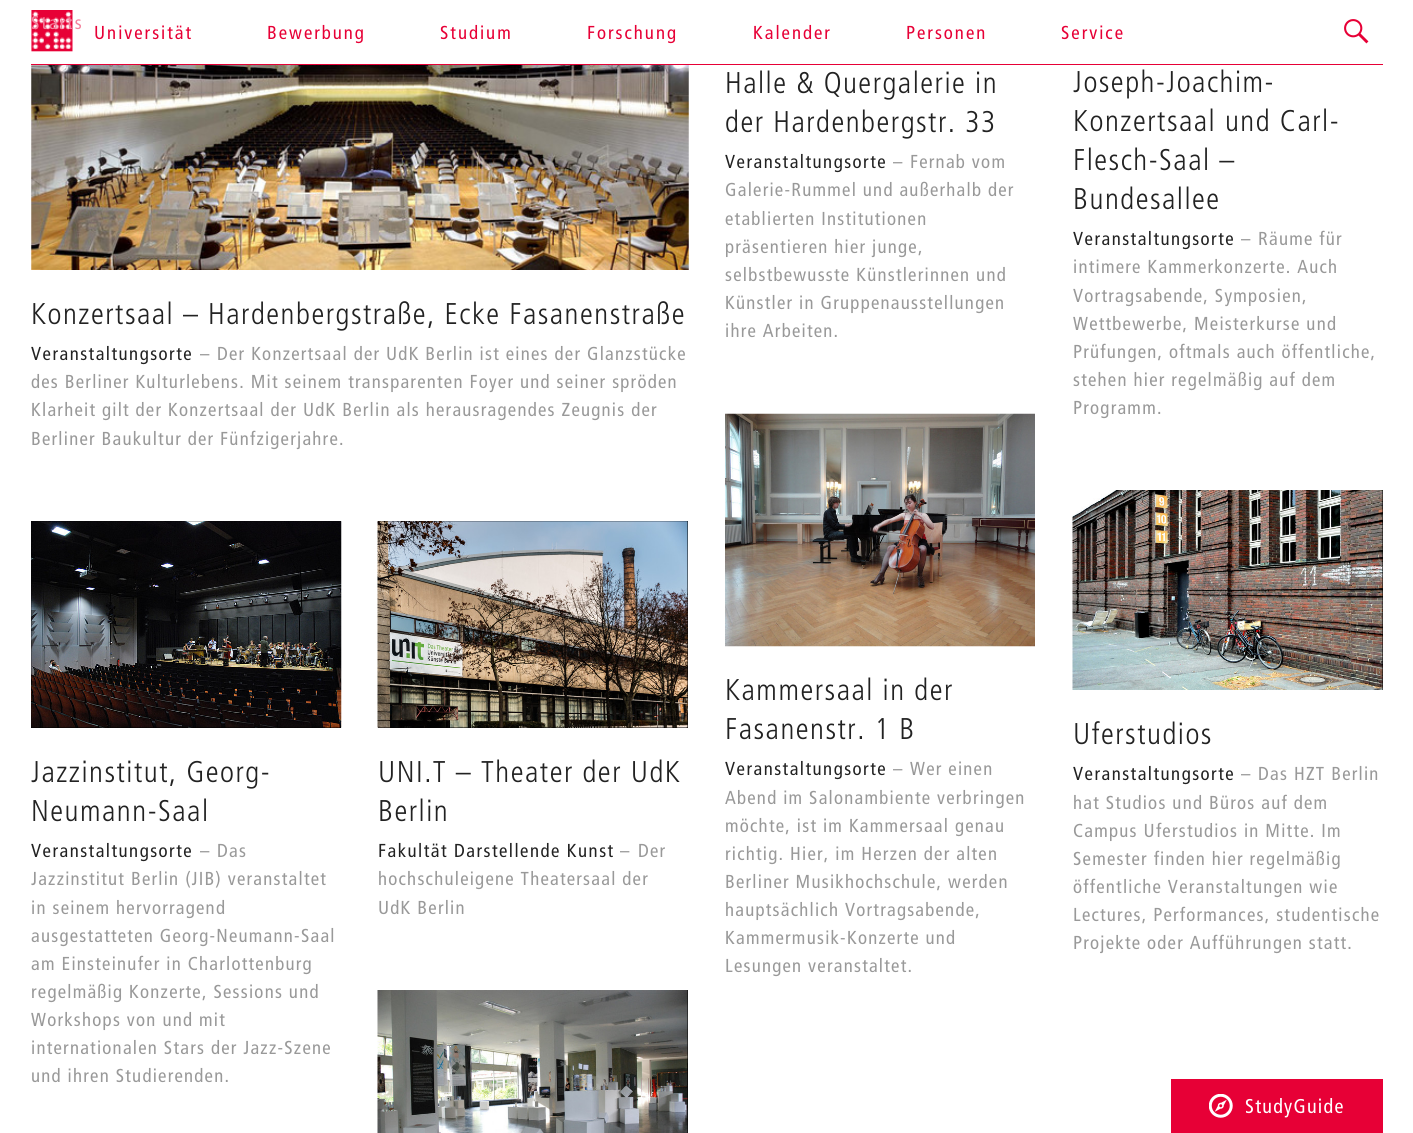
#include <cairo.h>
#include <math.h>
#include <stddef.h>


static void rgb(cairo_t *cr, int r, int g, int b)
{
	cairo_set_source_rgb(cr, r / 255.0, g / 255.0, b / 255.0);
}

static void face(cairo_t *cr, const char *family, double size, int italic, int bold)
{
	cairo_select_font_face(cr, family, italic ? CAIRO_FONT_SLANT_ITALIC : CAIRO_FONT_SLANT_NORMAL,
		bold ? CAIRO_FONT_WEIGHT_BOLD : CAIRO_FONT_WEIGHT_NORMAL);
	cairo_set_font_size(cr, size);
}

static void tracked(cairo_t *cr, double x, double y, const char *s, double letter, double word)
{
	cairo_move_to(cr, x, y);
	while (*s) {
		char ch[5] = {0};
		int n = 0;
		do ch[n++] = *s++; while ((*s & 0xC0) == 0x80);
		cairo_show_text(cr, ch);
		cairo_rel_move_to(cr, letter + word * (*ch == ' '), 0);
	}
}

static void rect(cairo_t *cr, double x, double y, double w, double h)
{
	cairo_rectangle(cr, x, y, w, h);
	cairo_fill(cr);
}

static void image(cairo_t *cr, const char *path, double x, double y, double w, double h)
{
	cairo_surface_t *image = cairo_image_surface_create_from_png(path);
	cairo_save(cr);
	cairo_set_source_surface(cr, image, x, y);
	cairo_rectangle(cr, x, y, w, h);
	cairo_fill(cr);
	cairo_restore(cr);
	cairo_surface_destroy(image);
}

static void draw(cairo_t *cr) {
	rgb(cr, 255, 255, 255);
	cairo_paint(cr);
	rgb(cr, 231, 0, 54);
	rect(cr, 31, 64, 1352, 1);
	image(cr, "image0.png", 31, 10, 42, 42);
	face(cr, "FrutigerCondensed", 18.75, 0, 0);
	rgb(cr, 243, 131, 157);
	tracked(cr, 31, 29, "Starts", 2, 0);
	rgb(cr, 231, 0, 54);
	tracked(cr, 94, 39, "Universität", 2, 0);
	tracked(cr, 267, 39, "Bewerbung", 2, 0);
	tracked(cr, 440, 39, "Studium", 2, 0);
	tracked(cr, 587, 39, "Forschung", 2, 0);
	tracked(cr, 753, 39, "Kalender", 2, 0);
	tracked(cr, 906, 39, "Personen", 2, 0);
	tracked(cr, 1061, 39, "Service", 2, 0);
	image(cr, "image1.png", 1344, 19, 25, 25);
	face(cr, "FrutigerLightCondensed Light", 30, 0, 0);
	rgb(cr, 34, 34, 34);
	tracked(cr, 725, 93, "Halle & Quergalerie in", 1.5, 0);
	tracked(cr, 725, 132, "der Hardenbergstr. 33", 1.5, 0);
	face(cr, "FrutigerCondensed", 18.75, 0, 0);
	tracked(cr, 725, 168, "Veranstaltungsorte", 1.5, 0);
	rgb(cr, 153, 153, 153);
	tracked(cr, 893, 168, "–", 1.5, 0);
	tracked(cr, 910, 168, "Fernab vom", 1.25, 0);
	tracked(cr, 725, 196, "Galerie-Rummel und außerhalb der", 1.25, 0);
	tracked(cr, 725, 225, "etablierten Institutionen", 1.25, 0);
	tracked(cr, 725, 253, "präsentieren hier junge,", 1.25, 0);
	tracked(cr, 725, 281, "selbstbewusste Künstlerinnen und", 1.25, 0);
	tracked(cr, 725, 309, "Künstler in Gruppenausstellungen", 1.25, 0);
	tracked(cr, 725, 337, "ihre Arbeiten.", 1.25, 0);
	face(cr, "FrutigerLightCondensed Light", 30, 0, 0);
	rgb(cr, 34, 34, 34);
	tracked(cr, 1073, 92, "Joseph-Joachim-", 1.5, 0);
	tracked(cr, 1073, 131, "Konzertsaal und Carl-", 1.5, 0);
	tracked(cr, 1073, 170, "Flesch-Saal –", 1.5, 0);
	tracked(cr, 1073, 209, "Bundesallee", 1.5, 0);
	face(cr, "FrutigerCondensed", 18.75, 0, 0);
	tracked(cr, 1073, 245, "Veranstaltungsorte", 1.5, 0);
	rgb(cr, 153, 153, 153);
	tracked(cr, 1241, 245, "–", 1.5, 0);
	tracked(cr, 1258, 245, "Räume für", 1.25, 0);
	tracked(cr, 1073, 273, "intimere Kammerkonzerte. Auch", 1.25, 0);
	tracked(cr, 1073, 302, "Vortragsabende, Symposien,", 1.25, 0);
	tracked(cr, 1073, 330, "Wettbewerbe, Meisterkurse und", 1.25, 0);
	tracked(cr, 1073, 358, "Prüfungen, oftmals auch öffentliche,", 1.25, 0);
	tracked(cr, 1073, 386, "stehen hier regelmäßig auf dem", 1.25, 0);
	tracked(cr, 1073, 414, "Programm.", 1.25, 0);
	image(cr, "image2.png", 31, 65, 658, 205);
	face(cr, "FrutigerLightCondensed Light", 30, 0, 0);
	rgb(cr, 34, 34, 34);
	tracked(cr, 31, 324, "Konzertsaal – Hardenbergstraße, Ecke Fasanenstraße", 1.5, 0);
	face(cr, "FrutigerCondensed", 18.75, 0, 0);
	tracked(cr, 31, 360, "Veranstaltungsorte", 1.5, 0);
	rgb(cr, 153, 153, 153);
	tracked(cr, 200, 360, "–", 1.5, 0);
	tracked(cr, 217, 360, "Der Konzertsaal der UdK Berlin ist eines der Glanzstücke", 1.25, 0);
	tracked(cr, 31, 388, "des Berliner Kulturlebens. Mit seinem transparenten Foyer und seiner spröden", 1.25, 0);
	tracked(cr, 31, 416, "Klarheit gilt der Konzertsaal der UdK Berlin als herausragendes Zeugnis der", 1.25, 0);
	tracked(cr, 31, 445, "Berliner Baukultur der Fünfzigerjahre.", 1.25, 0);
	rgb(cr, 0, 0, 0);
	rect(cr, 31, 521, 310, 207);
	image(cr, "image3.png", 31, 521, 311, 207);
	face(cr, "FrutigerLightCondensed Light", 30, 0, 0);
	rgb(cr, 34, 34, 34);
	tracked(cr, 31, 782, "Jazzinstitut, Georg-", 1.5, 0);
	tracked(cr, 31, 821, "Neumann-Saal", 1.5, 0);
	face(cr, "FrutigerCondensed", 18.75, 0, 0);
	tracked(cr, 31, 857, "Veranstaltungsorte", 1.5, 0);
	rgb(cr, 153, 153, 153);
	tracked(cr, 200, 857, "–", 1.5, 0);
	tracked(cr, 217, 857, "Das", 1.25, 0);
	tracked(cr, 31, 885, "Jazzinstitut Berlin (JIB) veranstaltet", 1.25, 0);
	tracked(cr, 31, 914, "in seinem hervorragend", 1.25, 0);
	tracked(cr, 31, 942, "ausgestatteten Georg-Neumann-Saal", 1.25, 0);
	tracked(cr, 31, 970, "am Einsteinufer in Charlottenburg", 1.25, 0);
	tracked(cr, 31, 998, "regelmäßig Konzerte, Sessions und", 1.25, 0);
	tracked(cr, 31, 1026, "Workshops von und mit", 1.25, 0);
	tracked(cr, 31, 1054, "internationalen Stars der Jazz-Szene", 1.25, 0);
	tracked(cr, 31, 1082, "und ihren Studierenden.", 1.25, 0);
	rgb(cr, 0, 0, 0);
	rect(cr, 378, 521, 310, 207);
	image(cr, "image4.png", 377, 521, 311, 207);
	face(cr, "FrutigerLightCondensed Light", 30, 0, 0);
	rgb(cr, 34, 34, 34);
	tracked(cr, 378, 782, "UNI.T – Theater der UdK", 1.5, 0);
	tracked(cr, 378, 821, "Berlin", 1.5, 0);
	face(cr, "FrutigerCondensed", 18.75, 0, 0);
	tracked(cr, 378, 857, "Fakultät Darstellende Kunst", 1.5, 0);
	rgb(cr, 153, 153, 153);
	tracked(cr, 620, 857, "–", 1.5, 0);
	tracked(cr, 638, 857, "Der", 1.25, 0);
	tracked(cr, 378, 885, "hochschuleigene Theatersaal der", 1.25, 0);
	tracked(cr, 378, 914, "UdK Berlin", 1.25, 0);
	image(cr, "image5.png", 725, 413, 310, 234);
	face(cr, "FrutigerLightCondensed Light", 30, 0, 0);
	rgb(cr, 34, 34, 34);
	tracked(cr, 725, 700, "Kammersaal in der", 1.5, 0);
	tracked(cr, 725, 739, "Fasanenstr. 1 B", 1.5, 0);
	face(cr, "FrutigerCondensed", 18.75, 0, 0);
	tracked(cr, 725, 775, "Veranstaltungsorte", 1.5, 0);
	rgb(cr, 153, 153, 153);
	tracked(cr, 893, 775, "–", 1.5, 0);
	tracked(cr, 910, 775, "Wer einen", 1.25, 0);
	tracked(cr, 725, 804, "Abend im Salonambiente verbringen", 1.25, 0);
	tracked(cr, 725, 832, "möchte, ist im Kammersaal genau", 1.25, 0);
	tracked(cr, 725, 860, "richtig. Hier, im Herzen der alten", 1.25, 0);
	tracked(cr, 725, 888, "Berliner Musikhochschule, werden", 1.25, 0);
	tracked(cr, 725, 916, "hauptsächlich Vortragsabende,", 1.25, 0);
	tracked(cr, 725, 944, "Kammermusik-Konzerte und", 1.25, 0);
	tracked(cr, 725, 972, "Lesungen veranstaltet.", 1.25, 0);
	rgb(cr, 0, 0, 0);
	rect(cr, 1382, 490, 1, 200);
	image(cr, "image6.png", 1072, 490, 311, 200);
	face(cr, "FrutigerLightCondensed Light", 30, 0, 0);
	rgb(cr, 34, 34, 34);
	tracked(cr, 1073, 744, "Uferstudios", 1.5, 0);
	face(cr, "FrutigerCondensed", 18.75, 0, 0);
	tracked(cr, 1073, 780, "Veranstaltungsorte", 1.5, 0);
	rgb(cr, 153, 153, 153);
	tracked(cr, 1241, 780, "–", 1.5, 0);
	tracked(cr, 1258, 780, "Das HZT Berlin", 1.25, 0);
	tracked(cr, 1073, 809, "hat Studios und Büros auf dem", 1.25, 0);
	tracked(cr, 1073, 837, "Campus Uferstudios in Mitte. Im", 1.25, 0);
	tracked(cr, 1073, 865, "Semester finden hier regelmäßig", 1.25, 0);
	tracked(cr, 1073, 893, "öffentliche Veranstaltungen wie", 1.25, 0);
	tracked(cr, 1073, 921, "Lectures, Performances, studentische", 1.25, 0);
	tracked(cr, 1073, 949, "Projekte oder Aufführungen statt.", 1.25, 0);
	rgb(cr, 0, 0, 0);
	rect(cr, 687, 990, 1, 143);
	image(cr, "image7.png", 377, 990, 311, 143);
	rgb(cr, 231, 0, 54);
	rect(cr, 1171, 1079, 212, 54);
	image(cr, "image8.png", 1209, 1094, 24, 24);
	face(cr, "FrutigerCondensed", 20, 0, 0);
	rgb(cr, 255, 255, 255);
	tracked(cr, 1245, 1113, "StudyGuide", 1.25, 0);
}

int main(void) {
	cairo_surface_t *surface = cairo_image_surface_create(CAIRO_FORMAT_RGB24, 1413, 1133);
	cairo_t *cr = cairo_create(surface);
	cairo_font_options_t *options = cairo_font_options_create();
	cairo_font_options_set_hint_metrics(options, CAIRO_HINT_METRICS_OFF);
	cairo_font_options_set_hint_style(options, CAIRO_HINT_STYLE_NONE);
	cairo_set_font_options(cr, options);
	cairo_set_miter_limit(cr, 4);
	draw(cr);
	cairo_surface_write_to_png(surface, "render.png");
	cairo_font_options_destroy(options);
	cairo_destroy(cr);
	cairo_surface_destroy(surface);
	return 0;
}
